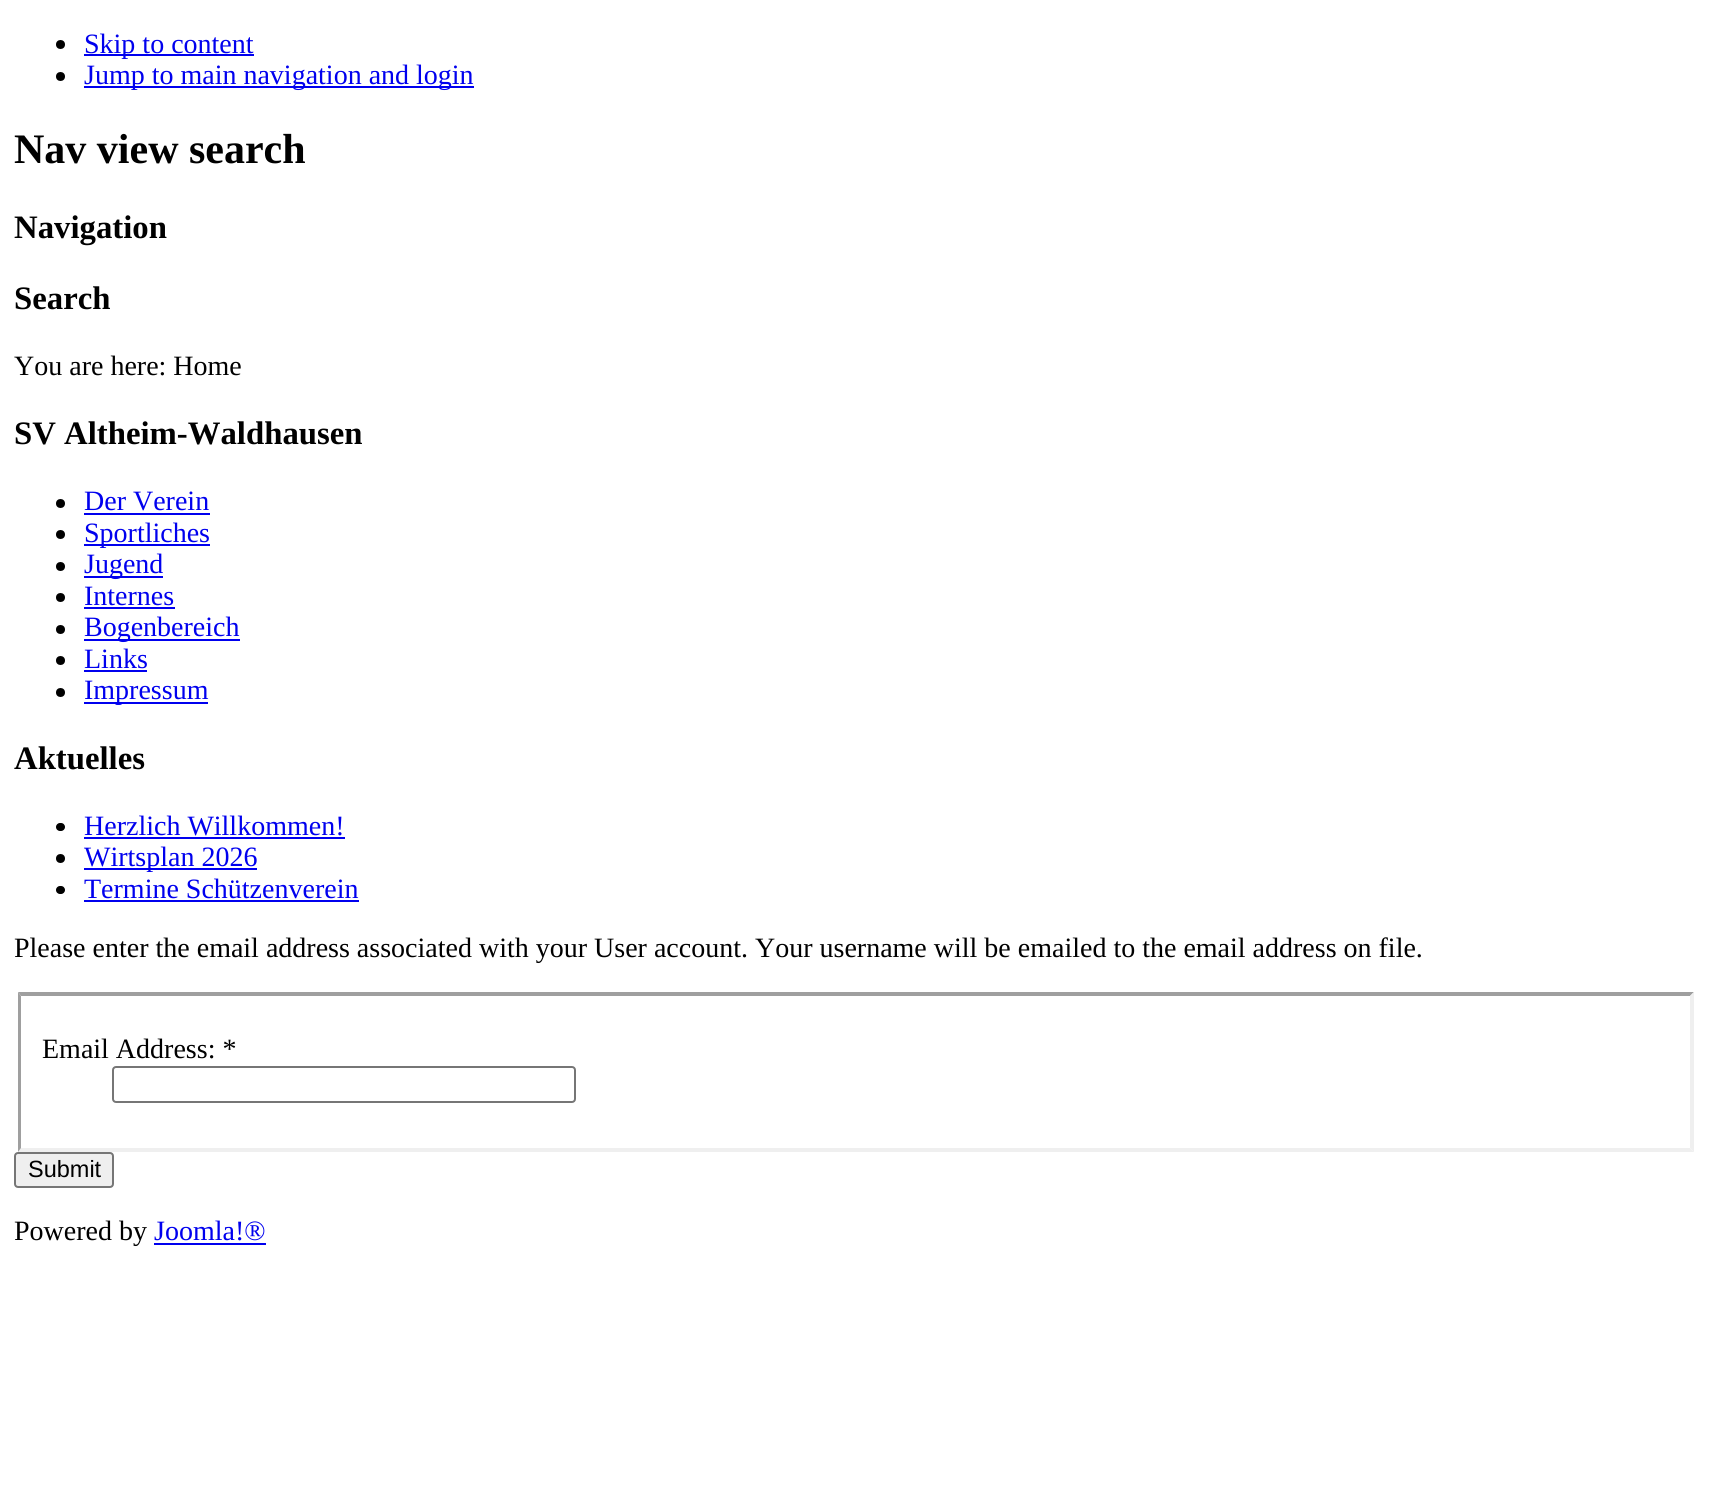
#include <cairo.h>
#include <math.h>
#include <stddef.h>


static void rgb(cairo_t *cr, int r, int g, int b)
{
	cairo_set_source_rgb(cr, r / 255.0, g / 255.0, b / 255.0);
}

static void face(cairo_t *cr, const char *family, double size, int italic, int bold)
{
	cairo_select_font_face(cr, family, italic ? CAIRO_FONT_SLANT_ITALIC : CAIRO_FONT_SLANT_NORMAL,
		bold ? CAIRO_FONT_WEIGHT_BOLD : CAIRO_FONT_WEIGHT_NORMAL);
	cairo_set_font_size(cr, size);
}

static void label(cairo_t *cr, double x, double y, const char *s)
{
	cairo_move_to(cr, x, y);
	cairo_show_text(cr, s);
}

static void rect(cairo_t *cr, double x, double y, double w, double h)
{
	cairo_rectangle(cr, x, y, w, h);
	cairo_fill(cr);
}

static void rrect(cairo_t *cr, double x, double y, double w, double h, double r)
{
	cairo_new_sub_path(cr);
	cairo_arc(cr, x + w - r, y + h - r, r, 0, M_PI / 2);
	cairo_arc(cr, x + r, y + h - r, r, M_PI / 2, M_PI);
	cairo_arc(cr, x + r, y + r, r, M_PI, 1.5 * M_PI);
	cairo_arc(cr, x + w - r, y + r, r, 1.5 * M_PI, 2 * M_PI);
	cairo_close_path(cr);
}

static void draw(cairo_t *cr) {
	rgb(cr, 255, 255, 255);
	cairo_paint(cr);
	rgb(cr, 0, 0, 0);
	cairo_arc(cr, 60.5, 44.5, 4.5, 0, 2 * M_PI);
	cairo_fill(cr);
	rgb(cr, 0, 0, 238);
	rect(cr, 84, 54, 170, 2);
	face(cr, "Liberation Serif", 28, 0, 0);
	label(cr, 84, 53, "Skip to content");
	rgb(cr, 0, 0, 0);
	cairo_new_path(cr);
	cairo_arc(cr, 60.5, 76.5, 4.5, 0, 2 * M_PI);
	cairo_fill(cr);
	rgb(cr, 0, 0, 238);
	rect(cr, 84, 86, 390, 2);
	label(cr, 84, 84, "Jump to main navigation and login");
	face(cr, "Liberation Serif", 42, 0, 1);
	rgb(cr, 0, 0, 0);
	label(cr, 14, 163, "Nav view search");
	face(cr, "Liberation Serif", 32.75, 0, 1);
	label(cr, 14, 238, "Navigation");
	label(cr, 14, 309, "Search");
	face(cr, "Liberation Serif", 28, 0, 0);
	label(cr, 14, 375, "You are here: Home");
	face(cr, "Liberation Serif", 32.75, 0, 1);
	label(cr, 14, 444, "SV Altheim-Waldhausen");
	cairo_new_path(cr);
	cairo_arc(cr, 60.5, 503.5, 4.5, 0, 2 * M_PI);
	cairo_fill(cr);
	face(cr, "Liberation Serif", 28, 0, 0);
	rgb(cr, 0, 0, 238);
	label(cr, 84, 510, "Der Verein");
	rect(cr, 84, 513, 126, 2);
	rgb(cr, 0, 0, 0);
	cairo_new_path(cr);
	cairo_arc(cr, 60.5, 534.5, 4.5, 0, 2 * M_PI);
	cairo_fill(cr);
	rgb(cr, 0, 0, 238);
	rect(cr, 84, 544, 126, 2);
	label(cr, 84, 542, "Sportliches");
	rgb(cr, 0, 0, 0);
	cairo_new_path(cr);
	cairo_arc(cr, 60.5, 566.5, 4.5, 0, 2 * M_PI);
	cairo_fill(cr);
	rgb(cr, 0, 0, 238);
	rect(cr, 84, 576, 79, 2);
	label(cr, 84, 573, "Jugend");
	rgb(cr, 0, 0, 0);
	cairo_new_path(cr);
	cairo_arc(cr, 60.5, 597.5, 4.5, 0, 2 * M_PI);
	cairo_fill(cr);
	rgb(cr, 0, 0, 238);
	label(cr, 84, 605, "Internes");
	rect(cr, 84, 607, 91, 2);
	rgb(cr, 0, 0, 0);
	cairo_new_path(cr);
	cairo_arc(cr, 60.5, 629.5, 4.5, 0, 2 * M_PI);
	cairo_fill(cr);
	rgb(cr, 0, 0, 238);
	rect(cr, 84, 639, 156, 2);
	label(cr, 84, 636, "Bogenbereich");
	rgb(cr, 0, 0, 0);
	cairo_new_path(cr);
	cairo_arc(cr, 60.5, 660.5, 4.5, 0, 2 * M_PI);
	cairo_fill(cr);
	rgb(cr, 0, 0, 238);
	label(cr, 84, 668, "Links");
	rect(cr, 84, 670, 63, 2);
	rgb(cr, 0, 0, 0);
	cairo_new_path(cr);
	cairo_arc(cr, 60.5, 692.5, 4.5, 0, 2 * M_PI);
	cairo_fill(cr);
	rgb(cr, 0, 0, 238);
	rect(cr, 84, 702, 124, 2);
	label(cr, 84, 699, "Impressum");
	face(cr, "Liberation Serif", 32.75, 0, 1);
	rgb(cr, 0, 0, 0);
	label(cr, 14, 769, "Aktuelles");
	rrect(cr, 56, 823, 9, 8, 4);
	cairo_fill(cr);
	face(cr, "Liberation Serif", 28, 0, 0);
	rgb(cr, 0, 0, 238);
	label(cr, 84, 835, "Herzlich Willkommen!");
	rect(cr, 84, 837, 261, 2);
	rgb(cr, 0, 0, 0);
	cairo_new_path(cr);
	cairo_arc(cr, 60.5, 858.5, 4.5, 0, 2 * M_PI);
	cairo_fill(cr);
	rgb(cr, 0, 0, 238);
	rect(cr, 84, 868, 173, 2);
	label(cr, 84, 866, "Wirtsplan 2026");
	rgb(cr, 0, 0, 0);
	rrect(cr, 56, 886, 9, 8, 4);
	cairo_fill(cr);
	rgb(cr, 0, 0, 238);
	label(cr, 84, 898, "Termine Schützenverein");
	rect(cr, 84, 900, 275, 2);
	rgb(cr, 0, 0, 0);
	label(cr, 14, 957, "Please enter the email address associated with your User account. Your username will be emailed to the email address on file.");
	rgb(cr, 159, 159, 159);
	cairo_new_path(cr);
	cairo_move_to(cr, 18, 992);
	cairo_line_to(cr, 1694, 992);
	cairo_line_to(cr, 1690, 996);
	cairo_line_to(cr, 21, 996);
	cairo_close_path(cr);
	cairo_fill(cr);
	rgb(cr, 239, 239, 239);
	cairo_new_path(cr);
	cairo_move_to(cr, 1694, 992);
	cairo_line_to(cr, 1694, 1152);
	cairo_line_to(cr, 1690, 1148);
	cairo_line_to(cr, 1690, 996);
	cairo_close_path(cr);
	cairo_fill(cr);
	cairo_new_path(cr);
	cairo_move_to(cr, 1694, 1152);
	cairo_line_to(cr, 18, 1152);
	cairo_line_to(cr, 21, 1148);
	cairo_line_to(cr, 1690, 1148);
	cairo_close_path(cr);
	cairo_fill(cr);
	rgb(cr, 159, 159, 159);
	cairo_new_path(cr);
	cairo_move_to(cr, 18, 1152);
	cairo_line_to(cr, 18, 992);
	cairo_line_to(cr, 21, 996);
	cairo_line_to(cr, 21, 1148);
	cairo_close_path(cr);
	cairo_fill(cr);
	rgb(cr, 0, 0, 0);
	label(cr, 42, 1058, "Email Address: *");
	rrect(cr, 113, 1067, 462, 35, 3);
	rgb(cr, 118, 118, 118);
	cairo_stroke(cr);
	rgb(cr, 239, 239, 239);
	rrect(cr, 15, 1153, 98, 34, 3);
	cairo_fill_preserve(cr);
	rgb(cr, 118, 118, 118);
	cairo_stroke(cr);
	face(cr, "Liberation Sans", 23.5, 0, 0);
	rgb(cr, 0, 0, 0);
	label(cr, 28, 1177, "Submit");
	face(cr, "Liberation Serif", 28, 0, 0);
	label(cr, 14, 1240, "Powered by");
	rgb(cr, 0, 0, 238);
	label(cr, 154, 1240, "Joomla!®");
	rect(cr, 154, 1243, 112, 2);
}

int main(void) {
	cairo_surface_t *surface = cairo_image_surface_create(CAIRO_FORMAT_RGB24, 1711, 1505);
	cairo_t *cr = cairo_create(surface);
	cairo_font_options_t *options = cairo_font_options_create();
	cairo_font_options_set_hint_metrics(options, CAIRO_HINT_METRICS_OFF);
	cairo_font_options_set_hint_style(options, CAIRO_HINT_STYLE_NONE);
	cairo_set_font_options(cr, options);
	cairo_set_miter_limit(cr, 4);
	draw(cr);
	cairo_surface_write_to_png(surface, "render.png");
	cairo_font_options_destroy(options);
	cairo_destroy(cr);
	cairo_surface_destroy(surface);
	return 0;
}
